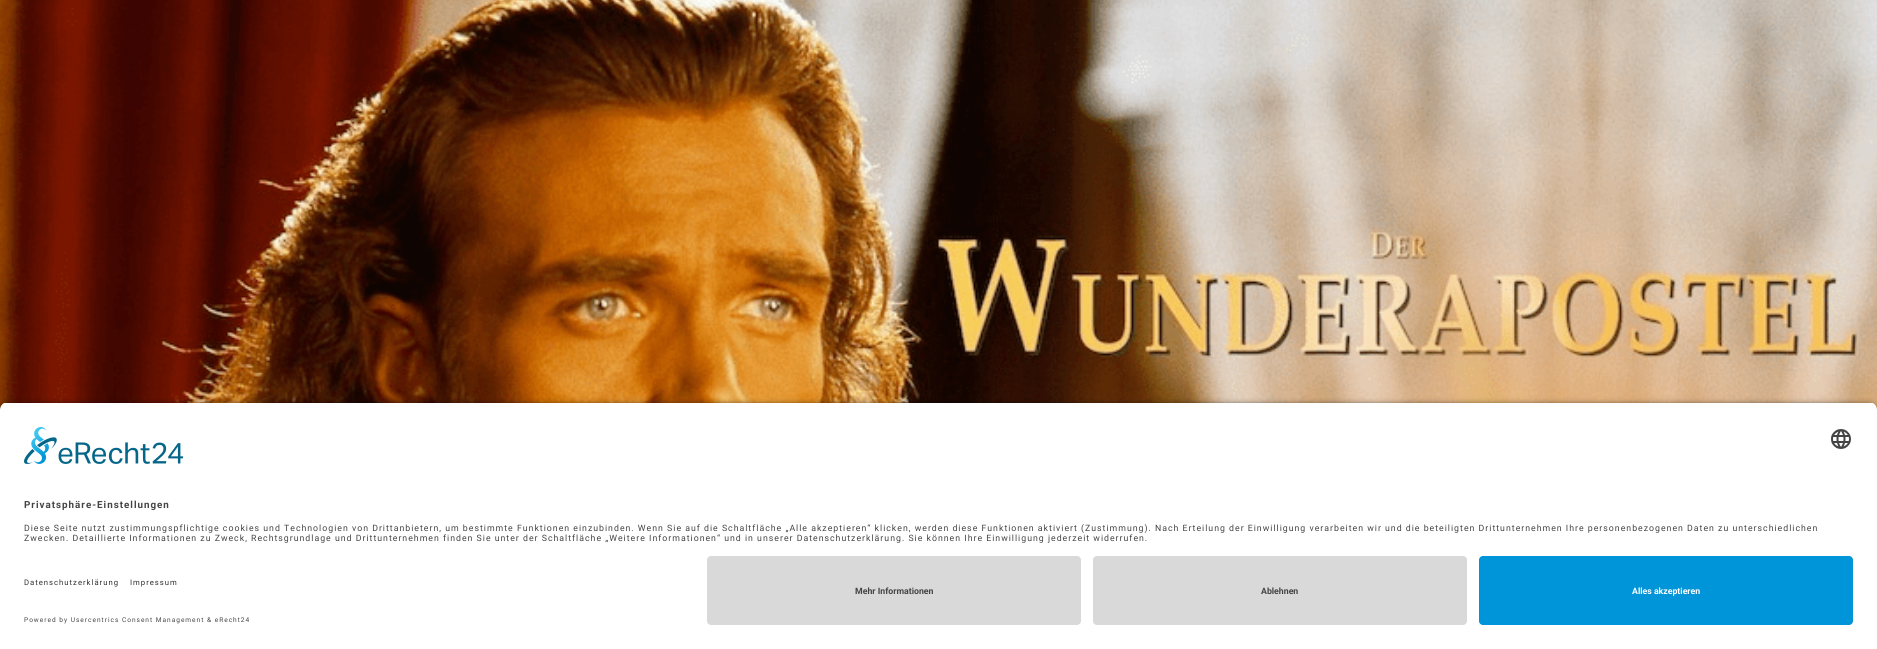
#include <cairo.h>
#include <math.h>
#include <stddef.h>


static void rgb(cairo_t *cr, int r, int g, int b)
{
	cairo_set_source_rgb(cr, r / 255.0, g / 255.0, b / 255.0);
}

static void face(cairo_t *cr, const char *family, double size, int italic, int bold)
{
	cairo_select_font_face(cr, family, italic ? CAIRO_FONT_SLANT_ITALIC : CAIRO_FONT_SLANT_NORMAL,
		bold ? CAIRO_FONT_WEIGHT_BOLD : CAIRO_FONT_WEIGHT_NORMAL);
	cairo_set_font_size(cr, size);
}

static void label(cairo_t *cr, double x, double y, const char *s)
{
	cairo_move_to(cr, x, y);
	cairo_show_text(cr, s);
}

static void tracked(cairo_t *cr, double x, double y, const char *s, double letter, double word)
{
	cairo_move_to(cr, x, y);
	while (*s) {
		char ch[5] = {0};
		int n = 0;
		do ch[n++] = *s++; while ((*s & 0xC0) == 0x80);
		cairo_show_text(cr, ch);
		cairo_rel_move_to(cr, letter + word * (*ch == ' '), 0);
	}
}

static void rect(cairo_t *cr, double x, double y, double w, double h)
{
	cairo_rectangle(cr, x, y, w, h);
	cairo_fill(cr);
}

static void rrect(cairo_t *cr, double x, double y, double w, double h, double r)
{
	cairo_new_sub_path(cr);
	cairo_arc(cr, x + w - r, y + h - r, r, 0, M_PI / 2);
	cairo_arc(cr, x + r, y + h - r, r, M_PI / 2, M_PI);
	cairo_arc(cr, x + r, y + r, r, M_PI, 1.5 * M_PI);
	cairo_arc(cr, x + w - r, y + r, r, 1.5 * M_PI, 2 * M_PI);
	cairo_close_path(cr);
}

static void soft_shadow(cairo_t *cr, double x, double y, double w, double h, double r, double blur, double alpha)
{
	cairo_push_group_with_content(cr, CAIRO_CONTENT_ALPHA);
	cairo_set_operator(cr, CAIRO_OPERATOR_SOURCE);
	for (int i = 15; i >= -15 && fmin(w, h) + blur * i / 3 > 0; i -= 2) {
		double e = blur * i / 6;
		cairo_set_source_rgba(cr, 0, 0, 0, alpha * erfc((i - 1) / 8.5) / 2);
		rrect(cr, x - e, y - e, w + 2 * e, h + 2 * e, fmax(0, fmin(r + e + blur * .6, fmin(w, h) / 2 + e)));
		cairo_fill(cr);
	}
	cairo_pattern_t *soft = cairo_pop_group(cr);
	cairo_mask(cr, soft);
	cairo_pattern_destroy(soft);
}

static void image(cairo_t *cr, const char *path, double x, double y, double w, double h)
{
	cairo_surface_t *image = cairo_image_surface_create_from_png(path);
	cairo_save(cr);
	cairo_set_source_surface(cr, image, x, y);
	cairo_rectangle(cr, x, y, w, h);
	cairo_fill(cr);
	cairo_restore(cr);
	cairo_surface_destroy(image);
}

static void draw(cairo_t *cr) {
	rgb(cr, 255, 255, 255);
	cairo_paint(cr);
	image(cr, "image0.png", 0, 0, 1877, 410);
	rgb(cr, 0, 0, 0);
	soft_shadow(cr, 0, 405, 1877, 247, 8, 3.5, 0.8);
	cairo_save(cr);
	cairo_new_path(cr);
	cairo_move_to(cr, 8, 402);
	cairo_line_to(cr, 1869, 402);
	cairo_curve_to(cr, 1873.5, 402, 1877, 405.5, 1877, 410);
	cairo_line_to(cr, 1877, 548);
	cairo_line_to(cr, 0, 548);
	cairo_line_to(cr, 0, 410);
	cairo_curve_to(cr, 0, 405.5, 3.5, 402, 8, 402);
	cairo_close_path(cr);
	cairo_clip(cr);
	rgb(cr, 255, 255, 255);
	rect(cr, 0, 403, 1877, 145);
	cairo_restore(cr);
	image(cr, "image1.png", 24, 427, 160, 37);
	image(cr, "image2.png", 1831, 429, 20, 20);
	face(cr, "Roboto", 9.8, 0, 1);
	rgb(cr, 68, 68, 68);
	tracked(cr, 24, 508, "Privatsphäre-Einstellungen", 1, 0);
	face(cr, "Roboto", 8.75, 0, 0);
	tracked(cr, 24, 531, "Diese Seite nutzt zustimmungspflichtige cookies und Technologien von Drittanbietern, um bestimmte Funktionen einzubinden. Wenn Sie auf die Schaltfläche „Alle akzeptieren“ klicken, werden diese Funktionen aktiviert (Zustimmung). Nach Erteilung der Einwilligung verarbeiten wir und die beteiligten Drittunternehmen Ihre personenbezogenen Daten zu unterschiedlichen", 1, 0);
	tracked(cr, 24, 541, "Zwecken. Detaillierte Informationen zu Zweck, Rechtsgrundlage und Drittunternehmen finden Sie unter der Schaltfläche „Weitere Informationen“ und in unserer Datenschutzerklärung. Sie können Ihre Einwilligung jederzeit widerrufen.", 1, 0);
	rgb(cr, 255, 255, 255);
	rect(cr, 0, 548, 1877, 101);
	face(cr, "Roboto", 7.7, 0, 0);
	rgb(cr, 48, 48, 48);
	tracked(cr, 24, 585, "Datenschutzerklärung", 1, 0);
	tracked(cr, 130, 585, "Impressum", 1, 0);
	face(cr, "Roboto", 6.55, 0, 0);
	rgb(cr, 68, 68, 68);
	tracked(cr, 24, 622, "Powered by Usercentrics Consent Management & eRecht24", 1, 0);
	rgb(cr, 217, 217, 217);
	rrect(cr, 707, 556, 374, 69, 4);
	cairo_fill(cr);
	face(cr, "Roboto", 8.75, 0, 1);
	rgb(cr, 68, 68, 68);
	label(cr, 855, 594, "Mehr Informationen");
	rgb(cr, 217, 217, 217);
	rrect(cr, 1093, 556, 374, 69, 4);
	cairo_fill(cr);
	rgb(cr, 68, 68, 68);
	label(cr, 1261, 594, "Ablehnen");
	rgb(cr, 0, 148, 216);
	rrect(cr, 1479, 556, 374, 69, 4);
	cairo_fill(cr);
	rgb(cr, 255, 255, 255);
	label(cr, 1632, 594, "Alles akzeptieren");
}

int main(void) {
	cairo_surface_t *surface = cairo_image_surface_create(CAIRO_FORMAT_RGB24, 1877, 649);
	cairo_t *cr = cairo_create(surface);
	cairo_font_options_t *options = cairo_font_options_create();
	cairo_font_options_set_hint_metrics(options, CAIRO_HINT_METRICS_OFF);
	cairo_font_options_set_hint_style(options, CAIRO_HINT_STYLE_NONE);
	cairo_set_font_options(cr, options);
	cairo_set_miter_limit(cr, 4);
	draw(cr);
	cairo_surface_write_to_png(surface, "render.png");
	cairo_font_options_destroy(options);
	cairo_destroy(cr);
	cairo_surface_destroy(surface);
	return 0;
}
